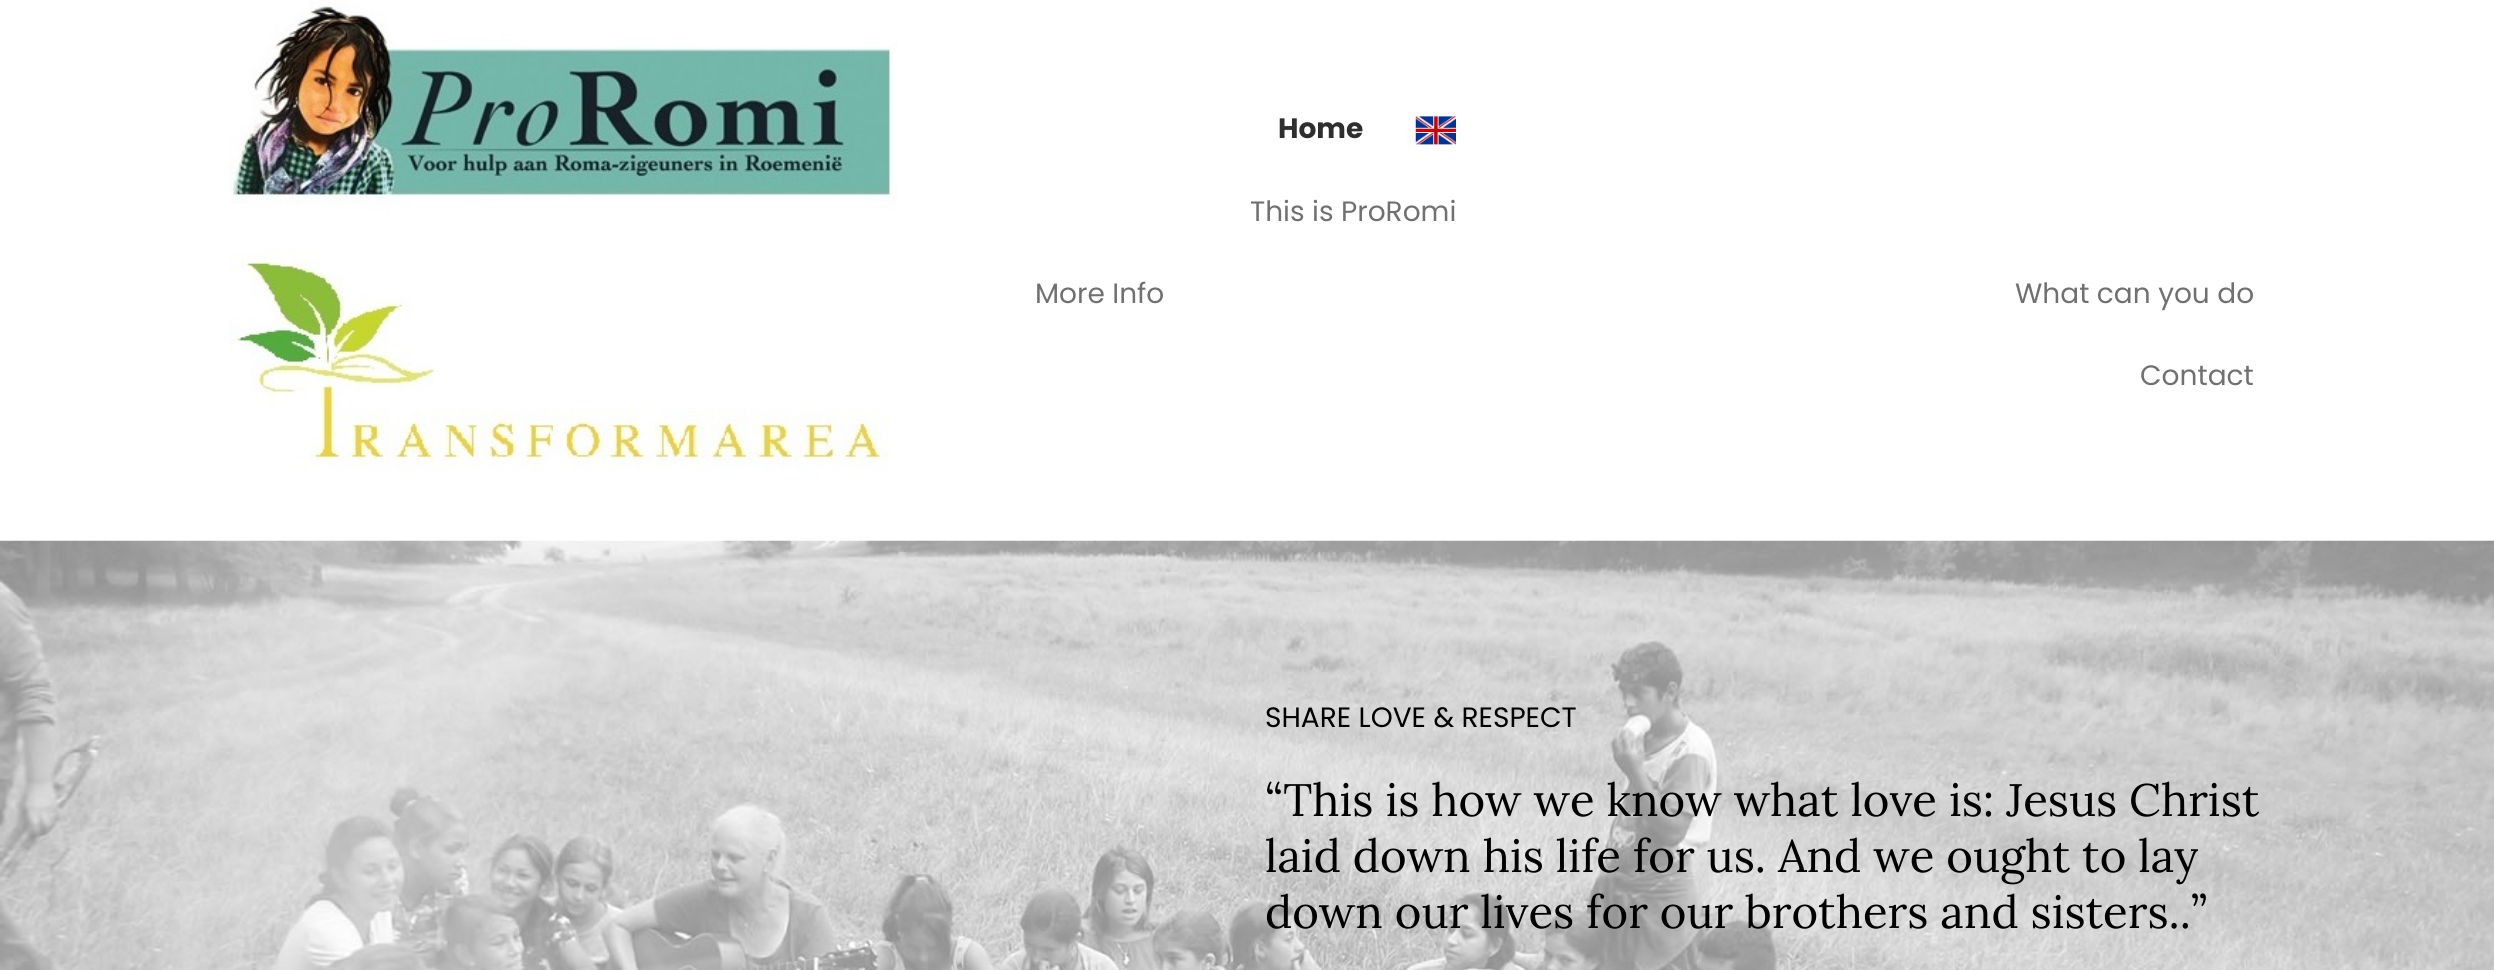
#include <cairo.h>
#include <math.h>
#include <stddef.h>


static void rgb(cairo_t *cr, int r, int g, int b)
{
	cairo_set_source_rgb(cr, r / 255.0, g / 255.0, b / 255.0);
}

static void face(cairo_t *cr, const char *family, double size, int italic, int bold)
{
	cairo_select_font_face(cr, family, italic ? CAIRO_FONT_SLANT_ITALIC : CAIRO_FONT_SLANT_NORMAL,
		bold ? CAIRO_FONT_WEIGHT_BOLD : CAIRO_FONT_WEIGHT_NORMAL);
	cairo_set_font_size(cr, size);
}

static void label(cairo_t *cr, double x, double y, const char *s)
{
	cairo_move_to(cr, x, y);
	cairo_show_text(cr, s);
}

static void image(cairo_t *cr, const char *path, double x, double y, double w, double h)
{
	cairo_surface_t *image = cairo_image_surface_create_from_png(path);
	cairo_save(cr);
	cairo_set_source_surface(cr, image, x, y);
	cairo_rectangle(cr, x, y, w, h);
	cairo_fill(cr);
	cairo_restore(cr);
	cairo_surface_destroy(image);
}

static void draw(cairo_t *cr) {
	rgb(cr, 255, 255, 255);
	cairo_paint(cr);
	image(cr, "image0.png", 229, 0, 668, 471);
	face(cr, "Poppins", 28, 0, 1);
	rgb(cr, 47, 46, 46);
	label(cr, 1278, 138, "Home");
	image(cr, "image1.png", 1415, 116, 41, 29);
	face(cr, "Poppins", 28, 0, 0);
	rgb(cr, 112, 112, 112);
	label(cr, 1250, 221, "This is ProRomi");
	label(cr, 1035, 303, "More Info");
	label(cr, 2015, 303, "What can you do");
	label(cr, 2140, 385, "Contact");
	image(cr, "image2.png", 0, 540, 2494, 430);
	rgb(cr, 0, 0, 0);
	label(cr, 1265, 727, "SHARE LOVE & RESPECT");
	face(cr, "Lora", 45.5, 0, 0);
	label(cr, 1265, 816, "“This is how we know what love is: Jesus Christ");
	label(cr, 1265, 872, "laid down his life for us. And we ought to lay");
	label(cr, 1265, 928, "down our lives for our brothers and sisters..”");
}

int main(void) {
	cairo_surface_t *surface = cairo_image_surface_create(CAIRO_FORMAT_RGB24, 2494, 970);
	cairo_t *cr = cairo_create(surface);
	cairo_font_options_t *options = cairo_font_options_create();
	cairo_font_options_set_hint_metrics(options, CAIRO_HINT_METRICS_OFF);
	cairo_font_options_set_hint_style(options, CAIRO_HINT_STYLE_NONE);
	cairo_set_font_options(cr, options);
	cairo_set_miter_limit(cr, 4);
	draw(cr);
	cairo_surface_write_to_png(surface, "render.png");
	cairo_font_options_destroy(options);
	cairo_destroy(cr);
	cairo_surface_destroy(surface);
	return 0;
}
